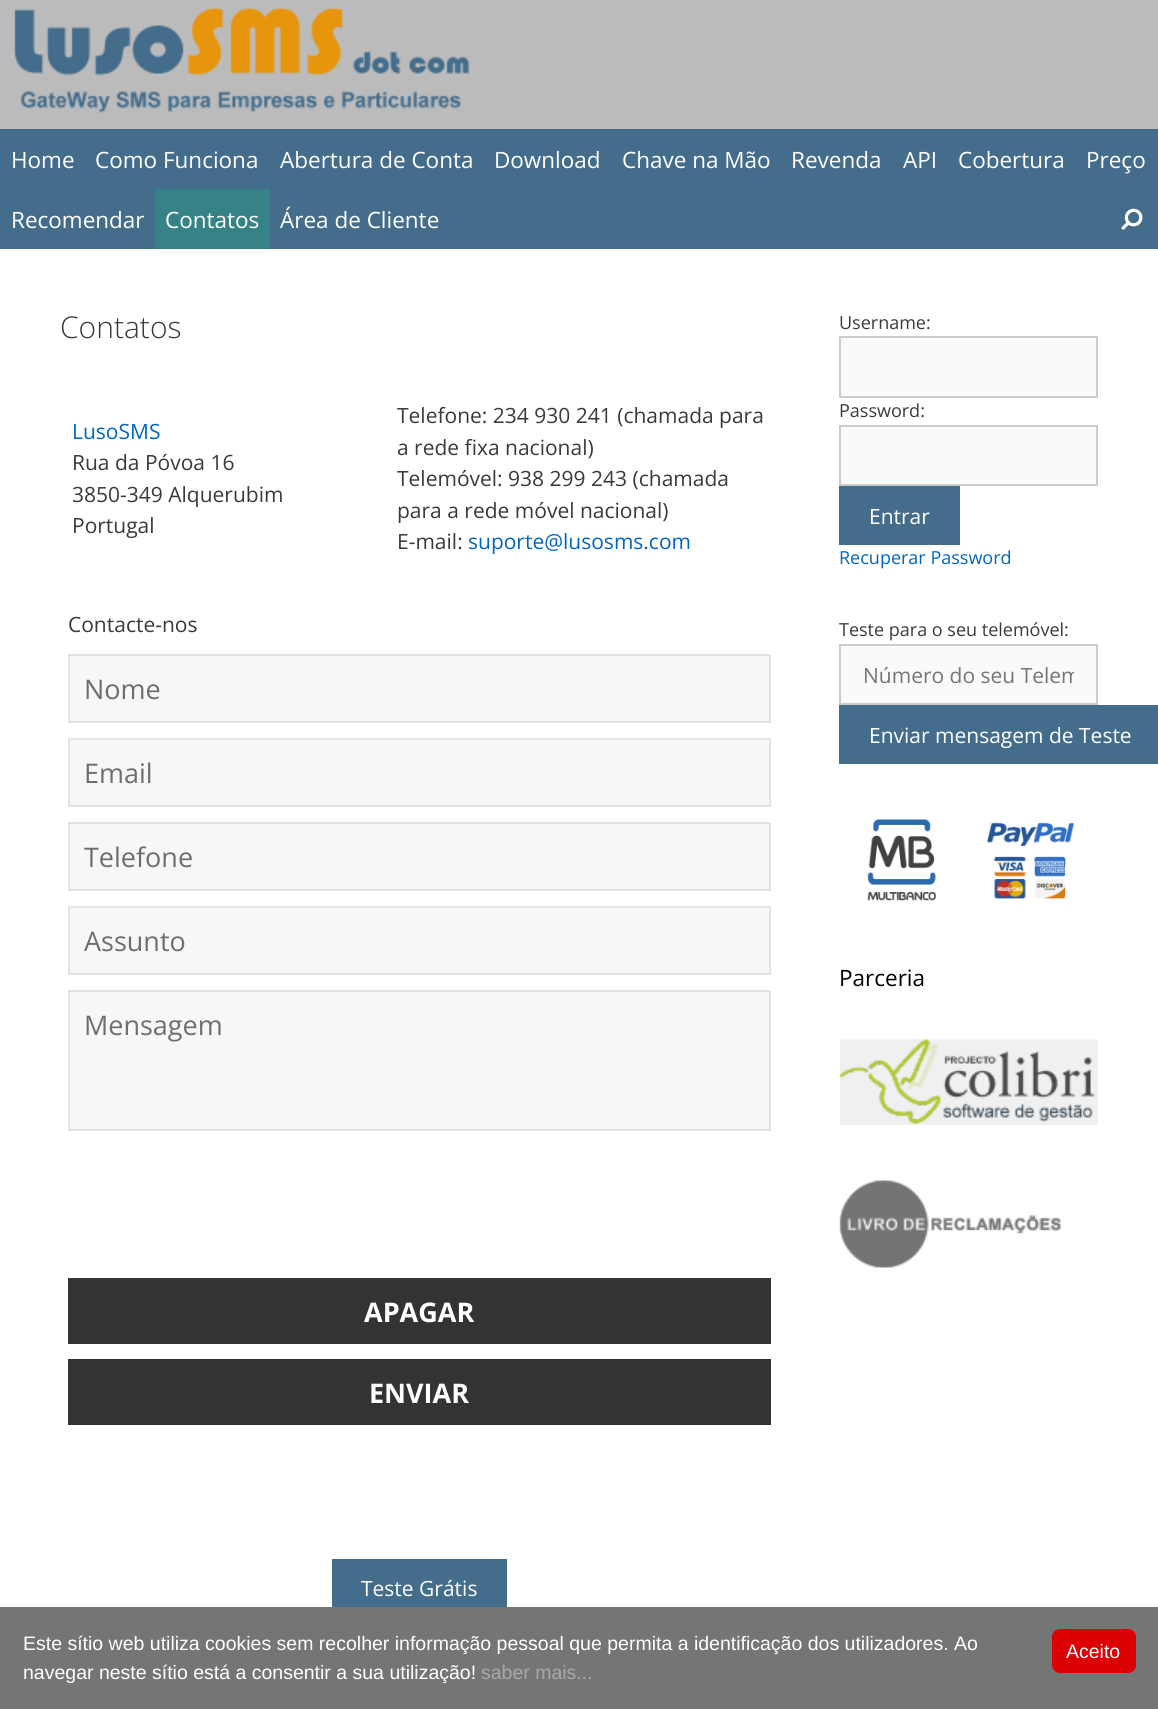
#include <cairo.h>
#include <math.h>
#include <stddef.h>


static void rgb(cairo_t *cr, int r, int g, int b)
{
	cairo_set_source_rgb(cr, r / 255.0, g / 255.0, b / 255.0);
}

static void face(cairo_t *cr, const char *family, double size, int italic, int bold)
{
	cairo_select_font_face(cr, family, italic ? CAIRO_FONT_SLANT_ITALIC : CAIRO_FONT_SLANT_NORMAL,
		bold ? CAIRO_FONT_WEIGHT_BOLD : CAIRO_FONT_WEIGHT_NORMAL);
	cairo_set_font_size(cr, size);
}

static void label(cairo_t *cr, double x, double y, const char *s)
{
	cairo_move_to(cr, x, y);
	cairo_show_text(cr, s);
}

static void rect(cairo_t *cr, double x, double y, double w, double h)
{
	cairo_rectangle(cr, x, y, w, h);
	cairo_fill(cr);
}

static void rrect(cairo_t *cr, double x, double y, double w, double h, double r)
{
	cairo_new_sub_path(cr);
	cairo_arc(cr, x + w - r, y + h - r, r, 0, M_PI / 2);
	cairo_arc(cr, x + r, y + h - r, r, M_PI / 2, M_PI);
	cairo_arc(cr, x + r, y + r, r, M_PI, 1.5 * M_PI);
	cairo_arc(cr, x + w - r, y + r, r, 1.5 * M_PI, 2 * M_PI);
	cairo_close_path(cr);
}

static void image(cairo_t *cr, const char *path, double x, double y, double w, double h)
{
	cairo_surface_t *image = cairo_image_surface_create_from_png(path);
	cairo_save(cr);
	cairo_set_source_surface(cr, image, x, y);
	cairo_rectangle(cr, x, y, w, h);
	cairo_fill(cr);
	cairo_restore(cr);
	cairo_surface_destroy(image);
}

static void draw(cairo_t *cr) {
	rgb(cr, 68, 109, 140);
	cairo_paint(cr);
	rgb(cr, 187, 187, 187);
	rect(cr, 0, 0, 1158, 129);
	image(cr, "image0.png", 14, 7, 456, 106);
	face(cr, "Open Sans", 22.5, 0, 0);
	rgb(cr, 255, 255, 255);
	label(cr, 11, 168, "Home");
	label(cr, 95, 168, "Como Funciona");
	label(cr, 280, 168, "Abertura de Conta");
	label(cr, 494, 168, "Download");
	label(cr, 622, 168, "Chave na Mão");
	label(cr, 791, 168, "Revenda");
	label(cr, 903, 168, "API");
	label(cr, 958, 168, "Cobertura");
	label(cr, 1086, 168, "Preço");
	label(cr, 11, 228, "Recomendar");
	rgb(cr, 53, 131, 134);
	rect(cr, 155, 189, 115, 60);
	rgb(cr, 255, 255, 255);
	label(cr, 165, 228, "Contatos");
	label(cr, 280, 228, "Área de Cliente");
	image(cr, "image1.png", 1121, 208, 22, 22);
	rect(cr, 0, 249, 1158, 1358);
	face(cr, "Open Sans Light", 30, 0, 0);
	rgb(cr, 58, 58, 58);
	label(cr, 60, 338, "Contatos");
	face(cr, "Open Sans", 21, 0, 0);
	rgb(cr, 0, 102, 191);
	label(cr, 72, 439, "LusoSMS");
	rgb(cr, 58, 58, 58);
	label(cr, 72, 470, "Rua da Póvoa 16");
	label(cr, 72, 502, "3850-349 Alquerubim");
	label(cr, 72, 533, "Portugal");
	label(cr, 397, 423, "Telefone: 234 930 241 (chamada para");
	label(cr, 397, 455, "a rede fixa nacional)");
	label(cr, 397, 486, "Telemóvel: 938 299 243 (chamada");
	label(cr, 397, 518, "para a rede móvel nacional)");
	label(cr, 397, 549, "E-mail:");
	rgb(cr, 0, 102, 191);
	label(cr, 468, 549, "suporte@lusosms.com");
	rgb(cr, 58, 58, 58);
	label(cr, 68, 632, "Contacte-nos");
	rgb(cr, 247, 247, 247);
	cairo_rectangle(cr, 69, 655, 701, 67);
	cairo_fill_preserve(cr);
	rgb(cr, 227, 227, 227);
	cairo_stroke(cr);
	face(cr, "Open Sans", 27, 0, 0);
	rgb(cr, 110, 110, 110);
	label(cr, 84, 699, "Nome");
	rgb(cr, 247, 247, 247);
	cairo_rectangle(cr, 69, 739, 701, 67);
	cairo_fill_preserve(cr);
	rgb(cr, 227, 227, 227);
	cairo_stroke(cr);
	rgb(cr, 110, 110, 110);
	label(cr, 84, 783, "Email");
	rgb(cr, 247, 247, 247);
	cairo_rectangle(cr, 69, 823, 701, 67);
	cairo_fill_preserve(cr);
	rgb(cr, 227, 227, 227);
	cairo_stroke(cr);
	rgb(cr, 110, 110, 110);
	label(cr, 84, 867, "Telefone");
	rgb(cr, 247, 247, 247);
	cairo_rectangle(cr, 69, 907, 701, 67);
	cairo_fill_preserve(cr);
	rgb(cr, 227, 227, 227);
	cairo_stroke(cr);
	rgb(cr, 110, 110, 110);
	label(cr, 84, 951, "Assunto");
	rgb(cr, 247, 247, 247);
	cairo_rectangle(cr, 69, 991, 701, 139);
	cairo_fill_preserve(cr);
	rgb(cr, 227, 227, 227);
	cairo_stroke(cr);
	rgb(cr, 110, 110, 110);
	label(cr, 84, 1035, "Mensagem");
	rgb(cr, 51, 51, 51);
	rect(cr, 68, 1278, 703, 66);
	face(cr, "Open Sans", 27, 0, 1);
	rgb(cr, 255, 255, 255);
	label(cr, 364, 1322, "APAGAR");
	rgb(cr, 51, 51, 51);
	rect(cr, 68, 1359, 703, 66);
	rgb(cr, 255, 255, 255);
	label(cr, 369, 1403, "ENVIAR");
	rgb(cr, 68, 109, 140);
	rect(cr, 332, 1559, 175, 48);
	face(cr, "Open Sans", 21, 0, 0);
	rgb(cr, 255, 255, 255);
	label(cr, 361, 1596, "Teste Grátis");
	face(cr, "Open Sans", 18, 0, 0);
	rgb(cr, 58, 58, 58);
	label(cr, 839, 329, "Username:");
	rgb(cr, 250, 250, 250);
	cairo_rectangle(cr, 840, 337, 257, 60);
	cairo_fill_preserve(cr);
	rgb(cr, 204, 204, 204);
	cairo_stroke(cr);
	rgb(cr, 58, 58, 58);
	label(cr, 839, 417, "Password:");
	rgb(cr, 250, 250, 250);
	cairo_rectangle(cr, 840, 426, 257, 59);
	cairo_fill_preserve(cr);
	rgb(cr, 204, 204, 204);
	cairo_stroke(cr);
	rgb(cr, 68, 109, 140);
	rect(cr, 839, 486, 121, 59);
	face(cr, "Open Sans", 21, 0, 0);
	rgb(cr, 255, 255, 255);
	label(cr, 869, 524, "Entrar");
	face(cr, "Open Sans", 18, 0, 0);
	rgb(cr, 0, 102, 191);
	label(cr, 839, 564, "Recuperar Password");
	rgb(cr, 58, 58, 58);
	label(cr, 839, 636, "Teste para o seu telemóvel:");
	rgb(cr, 250, 250, 250);
	cairo_rectangle(cr, 840, 645, 257, 59);
	cairo_fill_preserve(cr);
	rgb(cr, 204, 204, 204);
	cairo_stroke(cr);
	cairo_save(cr);
	cairo_rectangle(cr, 863, 660, 211, 29);
	cairo_clip(cr);
	face(cr, "Open Sans", 21, 0, 0);
	rgb(cr, 117, 117, 117);
	label(cr, 863, 683, "Número do seu Telem");
	cairo_restore(cr);
	rgb(cr, 68, 109, 140);
	rect(cr, 839, 705, 319, 59);
	face(cr, "Open Sans", 21, 0, 0);
	rgb(cr, 255, 255, 255);
	label(cr, 869, 743, "Enviar mensagem de Teste");
	image(cr, "image2.png", 867, 819, 208, 82);
	face(cr, "Open Sans", 22.5, 0, 0);
	rgb(cr, 0, 0, 0);
	label(cr, 839, 986, "Parceria");
	image(cr, "image3.png", 840, 1039, 258, 86);
	image(cr, "image4.png", 839, 1180, 222, 88);
	rgb(cr, 117, 117, 117);
	rect(cr, 0, 1607, 1158, 102);
	face(cr, "Liberation Sans", 19.5, 0, 0);
	rgb(cr, 255, 255, 255);
	label(cr, 23, 1650, "Este sítio web utiliza cookies sem recolher informação pessoal que permita a identificação dos utilizadores. Ao");
	label(cr, 23, 1679, "navegar neste sítio está a consentir a sua utilização!");
	rgb(cr, 168, 168, 168);
	label(cr, 481, 1679, "saber mais...");
	rgb(cr, 220, 1, 5);
	rrect(cr, 1052, 1629, 84, 44, 8);
	cairo_fill(cr);
	rgb(cr, 255, 255, 255);
	label(cr, 1066, 1658, "Aceito");
}

int main(void) {
	cairo_surface_t *surface = cairo_image_surface_create(CAIRO_FORMAT_RGB24, 1158, 1709);
	cairo_t *cr = cairo_create(surface);
	cairo_font_options_t *options = cairo_font_options_create();
	cairo_font_options_set_hint_metrics(options, CAIRO_HINT_METRICS_OFF);
	cairo_font_options_set_hint_style(options, CAIRO_HINT_STYLE_NONE);
	cairo_set_font_options(cr, options);
	cairo_set_miter_limit(cr, 4);
	draw(cr);
	cairo_surface_write_to_png(surface, "render.png");
	cairo_font_options_destroy(options);
	cairo_destroy(cr);
	cairo_surface_destroy(surface);
	return 0;
}
